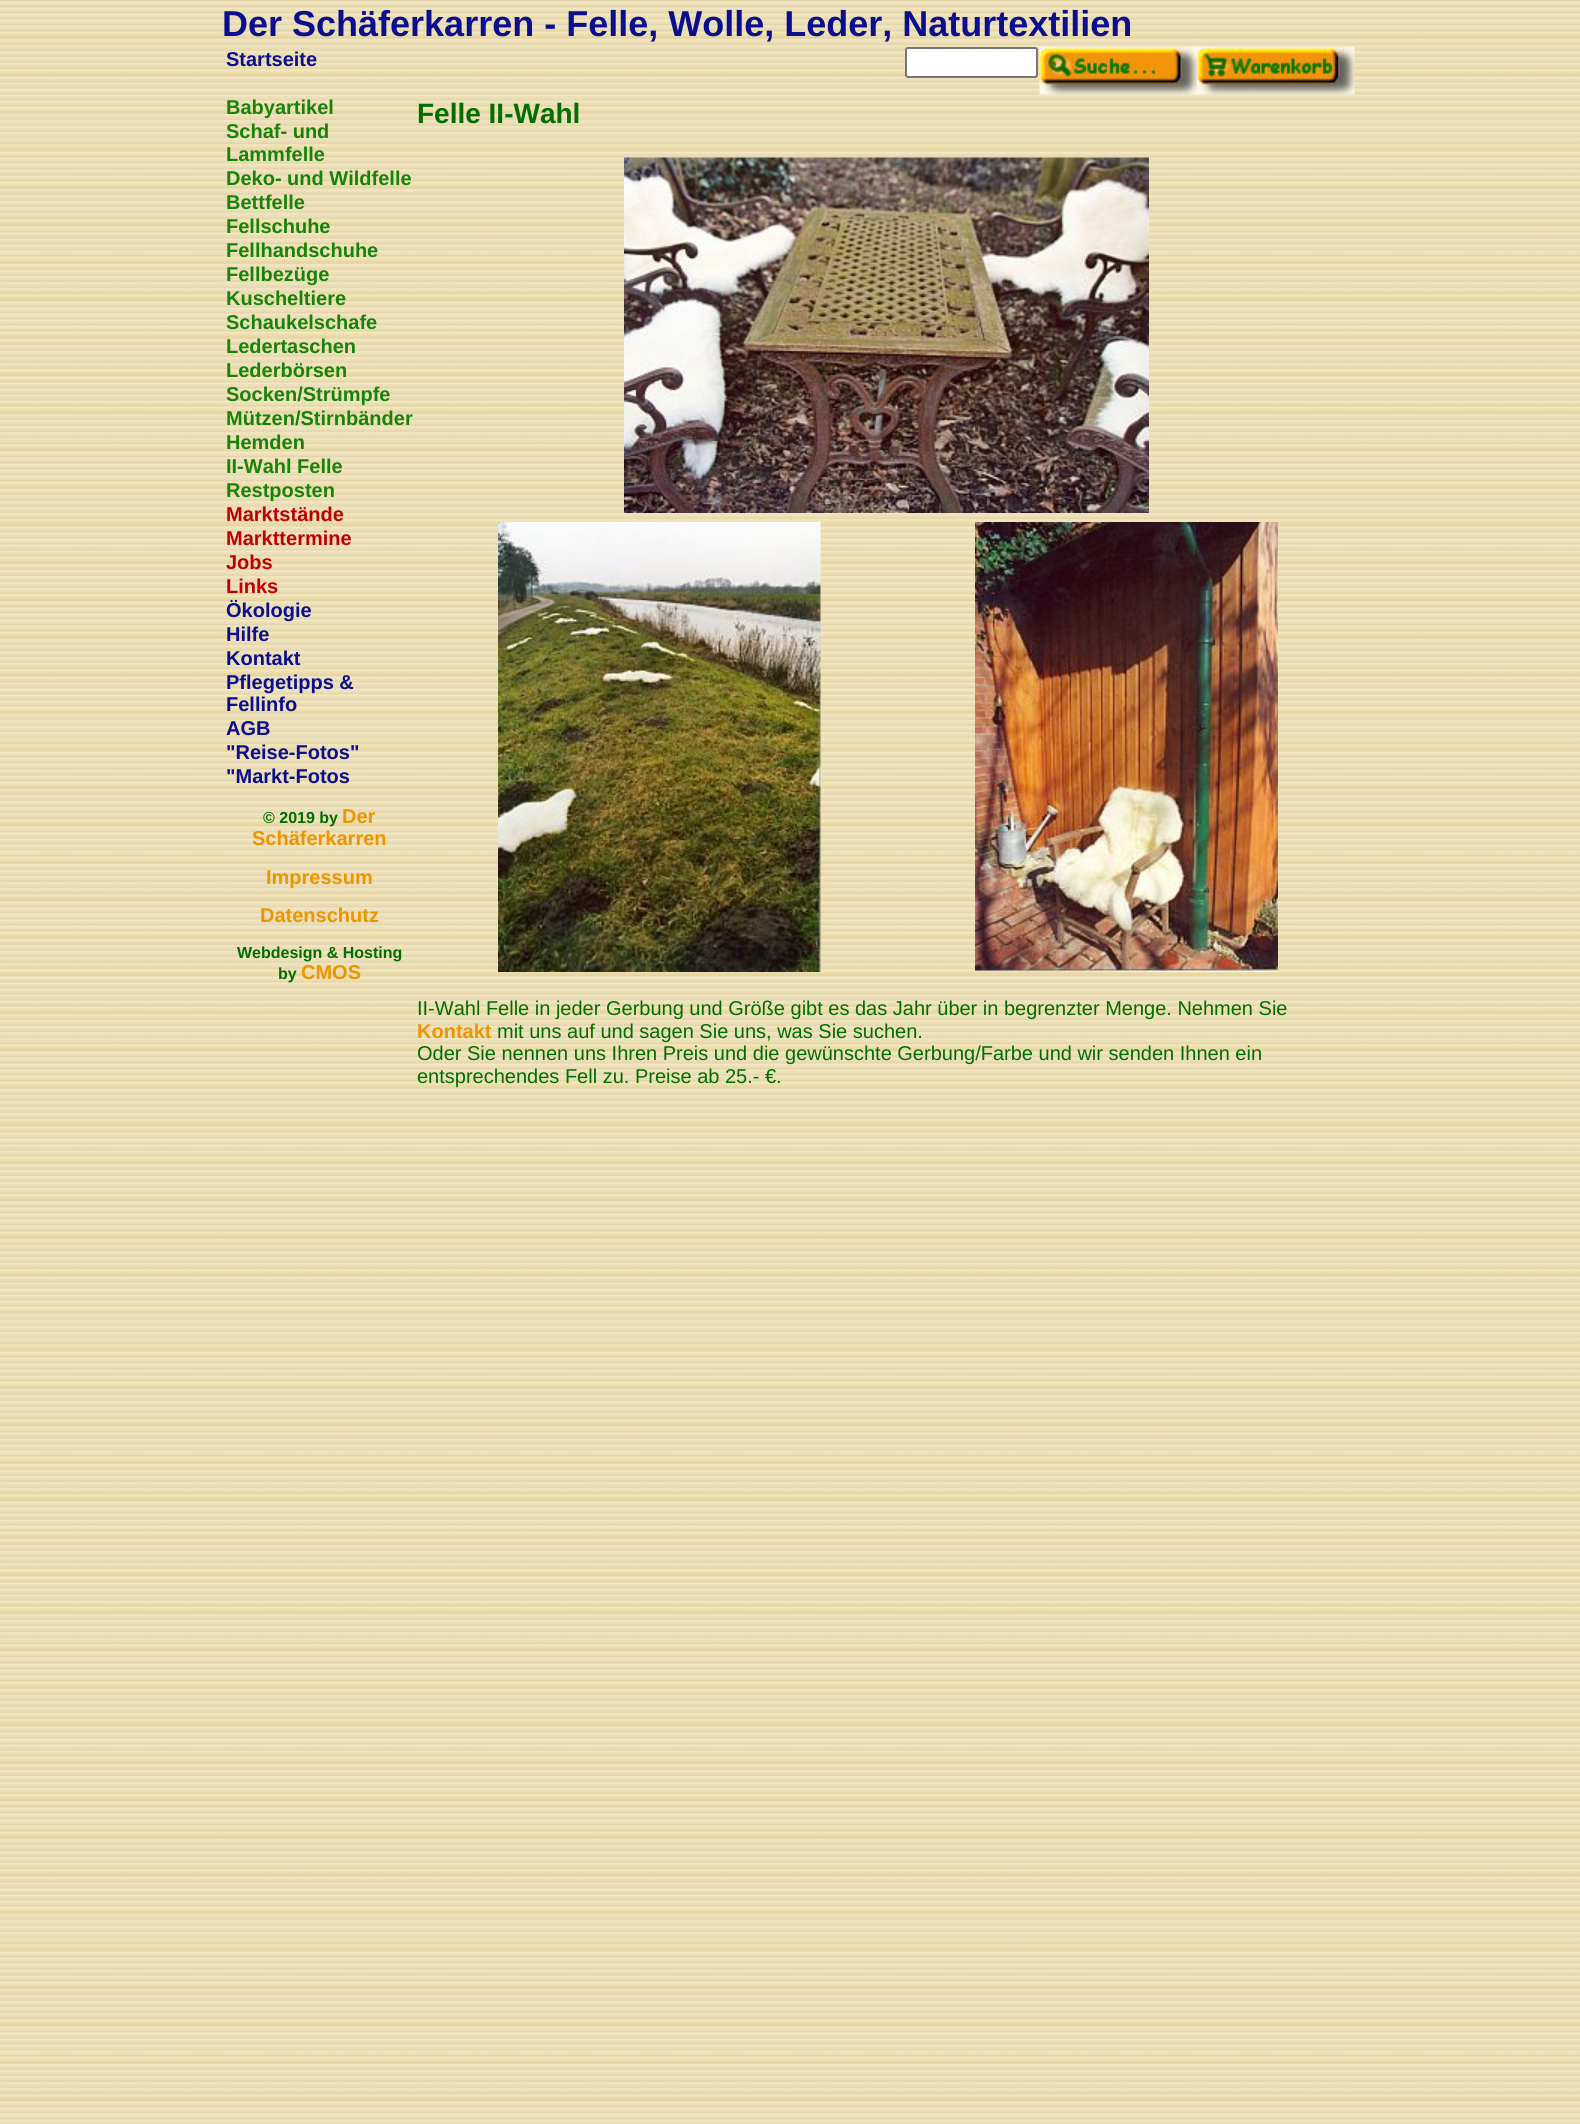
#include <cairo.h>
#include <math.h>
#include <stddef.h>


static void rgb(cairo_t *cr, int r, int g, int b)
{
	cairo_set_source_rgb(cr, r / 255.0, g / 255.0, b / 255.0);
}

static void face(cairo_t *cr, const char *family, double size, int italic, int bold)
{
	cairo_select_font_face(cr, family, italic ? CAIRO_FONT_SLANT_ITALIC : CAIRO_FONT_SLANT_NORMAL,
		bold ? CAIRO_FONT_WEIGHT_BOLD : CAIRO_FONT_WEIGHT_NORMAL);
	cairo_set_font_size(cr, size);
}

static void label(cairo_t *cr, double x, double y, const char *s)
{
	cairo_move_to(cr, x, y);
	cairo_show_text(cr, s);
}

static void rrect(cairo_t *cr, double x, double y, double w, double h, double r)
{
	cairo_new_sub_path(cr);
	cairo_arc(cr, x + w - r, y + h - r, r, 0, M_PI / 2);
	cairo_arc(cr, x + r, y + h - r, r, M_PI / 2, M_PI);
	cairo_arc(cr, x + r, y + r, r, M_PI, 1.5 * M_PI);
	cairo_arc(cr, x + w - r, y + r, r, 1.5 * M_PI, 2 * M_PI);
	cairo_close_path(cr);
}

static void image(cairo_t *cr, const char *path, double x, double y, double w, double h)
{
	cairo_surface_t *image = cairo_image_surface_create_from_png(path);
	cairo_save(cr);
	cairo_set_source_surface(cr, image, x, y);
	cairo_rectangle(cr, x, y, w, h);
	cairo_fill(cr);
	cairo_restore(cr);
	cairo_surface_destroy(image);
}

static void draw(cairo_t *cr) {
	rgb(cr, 255, 255, 255);
	cairo_paint(cr);
	image(cr, "image0.png", 0, 0, 1580, 2124);
	face(cr, "Liberation Sans", 36, 0, 1);
	rgb(cr, 11, 14, 143);
	label(cr, 222, 36, "Der Schäferkarren - Felle, Wolle, Leder, Naturtextilien");
	face(cr, "Liberation Sans", 20, 0, 1);
	label(cr, 226, 66, "Startseite");
	rgb(cr, 23, 132, 8);
	label(cr, 226, 114, "Babyartikel");
	label(cr, 226, 138, "Schaf- und");
	label(cr, 226, 161, "Lammfelle");
	label(cr, 226, 185, "Deko- und Wildfelle");
	label(cr, 226, 209, "Bettfelle");
	label(cr, 226, 233, "Fellschuhe");
	label(cr, 226, 257, "Fellhandschuhe");
	label(cr, 226, 281, "Fellbezüge");
	label(cr, 226, 305, "Kuscheltiere");
	label(cr, 226, 329, "Schaukelschafe");
	label(cr, 226, 353, "Ledertaschen");
	label(cr, 226, 377, "Lederbörsen");
	label(cr, 226, 401, "Socken/Strümpfe");
	label(cr, 226, 425, "Mützen/Stirnbänder");
	label(cr, 226, 449, "Hemden");
	label(cr, 226, 473, "II-Wahl Felle");
	label(cr, 226, 497, "Restposten");
	rgb(cr, 192, 0, 0);
	label(cr, 226, 521, "Marktstände");
	label(cr, 226, 545, "Markttermine");
	label(cr, 226, 569, "Jobs");
	label(cr, 226, 593, "Links");
	rgb(cr, 11, 14, 143);
	label(cr, 226, 617, "Ökologie");
	label(cr, 226, 641, "Hilfe");
	label(cr, 226, 665, "Kontakt");
	label(cr, 226, 689, "Pflegetipps &");
	label(cr, 226, 711, "Fellinfo");
	label(cr, 226, 735, "AGB");
	label(cr, 226, 759, "\"Reise-Fotos\"");
	label(cr, 226, 783, "\"Markt-Fotos");
	face(cr, "Liberation Sans", 16, 0, 1);
	rgb(cr, 0, 110, 0);
	label(cr, 263, 823, "© 2019 by");
	face(cr, "Liberation Sans", 20, 0, 1);
	rgb(cr, 235, 149, 0);
	label(cr, 342, 823, "Der");
	label(cr, 252, 845, "Schäferkarren");
	label(cr, 266, 884, "Impressum");
	label(cr, 260, 922, "Datenschutz");
	face(cr, "Liberation Sans", 16, 0, 1);
	rgb(cr, 0, 110, 0);
	label(cr, 237, 958, "Webdesign & Hosting");
	label(cr, 278, 979, "by");
	face(cr, "Liberation Sans", 20, 0, 1);
	rgb(cr, 235, 149, 0);
	label(cr, 301, 979, "CMOS");
	rgb(cr, 255, 255, 255);
	rrect(cr, 906, 48, 131, 29, 2);
	cairo_fill_preserve(cr);
	rgb(cr, 118, 118, 118);
	cairo_stroke(cr);
	image(cr, "image1.png", 1039, 46, 158, 49);
	image(cr, "image2.png", 1197, 46, 158, 49);
	face(cr, "Liberation Sans", 28, 0, 1);
	rgb(cr, 0, 110, 0);
	label(cr, 417, 123, "Felle II-Wahl");
	image(cr, "image3.png", 624, 157, 525, 356);
	image(cr, "image4.png", 498, 522, 323, 450);
	image(cr, "image5.png", 975, 522, 303, 450);
	face(cr, "Liberation Sans", 20, 0, 0);
	label(cr, 417, 1015, "II-Wahl Felle in jeder Gerbung und Größe gibt es das Jahr über in begrenzter Menge. Nehmen Sie");
	face(cr, "Liberation Sans", 20, 0, 1);
	rgb(cr, 235, 149, 0);
	label(cr, 417, 1038, "Kontakt");
	face(cr, "Liberation Sans", 20, 0, 0);
	rgb(cr, 0, 110, 0);
	label(cr, 497, 1038, "mit uns auf und sagen Sie uns, was Sie suchen.");
	label(cr, 417, 1060, "Oder Sie nennen uns Ihren Preis und die gewünschte Gerbung/Farbe und wir senden Ihnen ein");
	label(cr, 417, 1083, "entsprechendes Fell zu. Preise ab 25.- €.");
}

int main(void) {
	cairo_surface_t *surface = cairo_image_surface_create(CAIRO_FORMAT_RGB24, 1580, 2124);
	cairo_t *cr = cairo_create(surface);
	cairo_font_options_t *options = cairo_font_options_create();
	cairo_font_options_set_hint_metrics(options, CAIRO_HINT_METRICS_OFF);
	cairo_font_options_set_hint_style(options, CAIRO_HINT_STYLE_NONE);
	cairo_set_font_options(cr, options);
	cairo_set_miter_limit(cr, 4);
	draw(cr);
	cairo_surface_write_to_png(surface, "render.png");
	cairo_font_options_destroy(options);
	cairo_destroy(cr);
	cairo_surface_destroy(surface);
	return 0;
}
